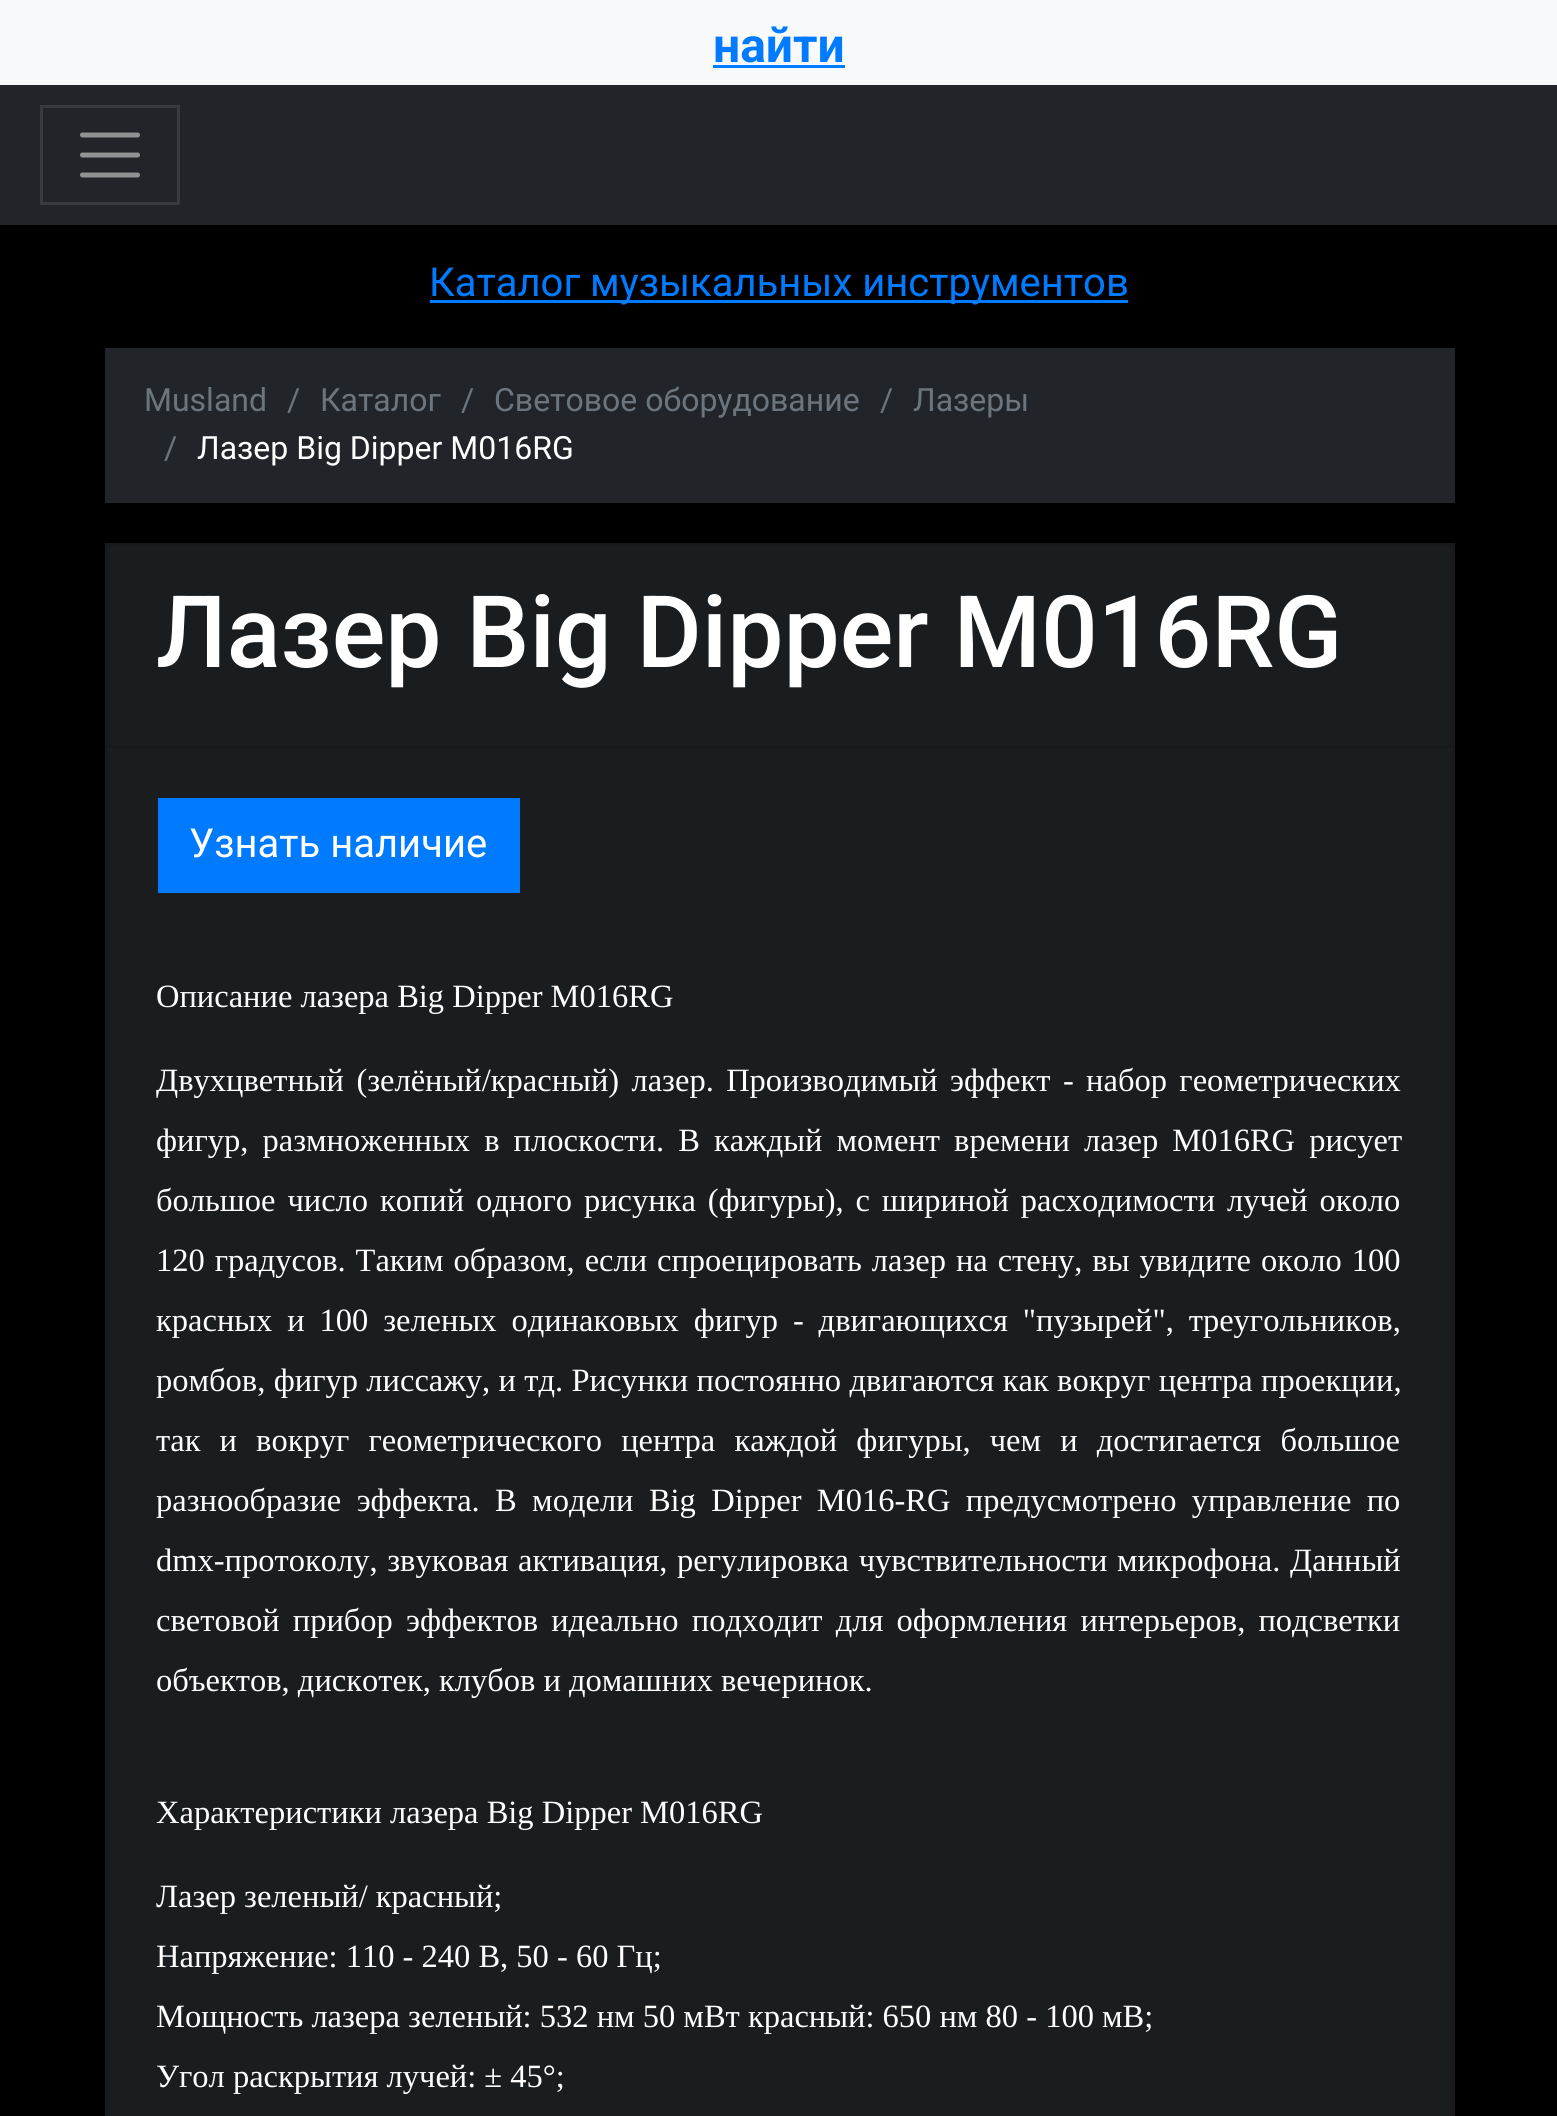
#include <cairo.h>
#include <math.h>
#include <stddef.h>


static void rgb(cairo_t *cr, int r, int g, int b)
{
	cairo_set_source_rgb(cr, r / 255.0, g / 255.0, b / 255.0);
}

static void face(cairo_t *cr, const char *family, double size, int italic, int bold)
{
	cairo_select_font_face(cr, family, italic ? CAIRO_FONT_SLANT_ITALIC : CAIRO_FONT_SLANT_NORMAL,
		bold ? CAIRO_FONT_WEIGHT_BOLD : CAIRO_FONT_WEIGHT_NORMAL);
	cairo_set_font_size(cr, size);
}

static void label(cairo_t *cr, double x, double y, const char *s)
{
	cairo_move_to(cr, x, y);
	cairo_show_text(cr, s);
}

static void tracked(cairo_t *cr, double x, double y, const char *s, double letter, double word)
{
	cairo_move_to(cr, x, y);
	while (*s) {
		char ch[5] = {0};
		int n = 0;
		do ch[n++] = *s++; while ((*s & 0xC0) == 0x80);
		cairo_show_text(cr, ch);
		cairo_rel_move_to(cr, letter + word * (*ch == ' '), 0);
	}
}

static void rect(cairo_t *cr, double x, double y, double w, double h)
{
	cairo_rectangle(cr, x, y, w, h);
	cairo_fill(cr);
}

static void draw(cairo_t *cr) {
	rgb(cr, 0, 0, 0);
	cairo_paint(cr);
	rgb(cr, 248, 249, 250);
	rect(cr, 0, 0, 1557, 85);
	face(cr, "Roboto", 48, 0, 1);
	rgb(cr, 0, 123, 255);
	label(cr, 713, 62, "найти");
	rect(cr, 713, 65, 132, 3);
	rgb(cr, 33, 37, 41);
	rect(cr, 0, 85, 1557, 140);
	cairo_rectangle(cr, 41.5, 106.5, 137, 97);
	rgb(cr, 55, 59, 62);
	cairo_set_line_width(cr, 3);
	cairo_stroke(cr);
	cairo_new_path(cr);
	cairo_move_to(cr, 82.5, 135);
	cairo_line_to(cr, 137.5, 135);
	cairo_move_to(cr, 82.5, 155);
	cairo_line_to(cr, 137.5, 155);
	cairo_move_to(cr, 82.5, 175);
	cairo_line_to(cr, 137.5, 175);
	rgb(cr, 144, 146, 148);
	cairo_set_line_width(cr, 5);
	cairo_set_line_cap(cr, CAIRO_LINE_CAP_ROUND);
	cairo_stroke(cr);
	rgb(cr, 0, 123, 255);
	rect(cr, 430, 300, 698, 3);
	face(cr, "Roboto", 40, 0, 0);
	label(cr, 429, 296, "Каталог музыкальных инструментов");
	rgb(cr, 33, 37, 41);
	rect(cr, 105, 348, 1350, 155);
	face(cr, "Roboto", 32, 0, 0);
	rgb(cr, 108, 117, 125);
	label(cr, 144, 411, "Musland");
	label(cr, 287, 411, "/");
	label(cr, 320, 411, "Каталог");
	label(cr, 461, 411, "/");
	label(cr, 494, 411, "Световое оборудование");
	label(cr, 880, 411, "/");
	label(cr, 913, 411, "Лазеры");
	label(cr, 164, 459, "/");
	rgb(cr, 255, 255, 255);
	label(cr, 197, 459, "Лазер Big Dipper M016RG");
	rgb(cr, 26, 29, 32);
	cairo_rectangle(cr, 106.5, 544.5, 1347, 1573);
	cairo_fill_preserve(cr);
	rgb(cr, 23, 25, 28);
	cairo_set_line_width(cr, 3);
	cairo_set_line_cap(cr, CAIRO_LINE_CAP_BUTT);
	cairo_stroke(cr);
	cairo_set_source_rgba(cr, 0, 0, 0, 0.12);
	rect(cr, 108, 745, 1345, 3);
	face(cr, "Roboto Medium", 100, 0, 0);
	rgb(cr, 255, 255, 255);
	label(cr, 156, 667, "Лазер Big Dipper M016RG");
	rgb(cr, 0, 123, 255);
	rect(cr, 158, 798, 362, 95);
	face(cr, "Roboto", 40, 0, 0);
	rgb(cr, 255, 255, 255);
	label(cr, 189, 857, "Узнать наличие");
	face(cr, "Liberation Serif", 32.5, 0, 0);
	label(cr, 156, 1007, "Описание лазера Big Dipper M016RG");
	tracked(cr, 156, 1091, "Двухцветный (зелёный/красный) лазер. Производимый эффект - набор геометрических", 0, 4.25);
	tracked(cr, 156, 1151, "фигур, размноженных в плоскости. В каждый момент времени лазер M016RG рисует", 0, 6);
	tracked(cr, 156, 1211, "большое число копий одного рисунка (фигуры), с шириной расходимости лучей около", 0, 3.75);
	tracked(cr, 156, 1271, "120 градусов. Таким образом, если спроецировать лазер на стену, вы увидите около 100", 0, 1.8);
	tracked(cr, 156, 1331, "красных и 100 зеленых одинаковых фигур - двигающихся \"пузырей\", треугольников,", 0, 6.75);
	tracked(cr, 156, 1391, "ромбов, фигур лиссажу, и тд. Рисунки постоянно двигаются как вокруг центра проекции,", 0, 0.25);
	tracked(cr, 156, 1451, "так и вокруг геометрического центра каждой фигуры, чем и достигается большое", 0, 11);
	tracked(cr, 156, 1511, "разнообразие эффекта. В модели Big Dipper M016-RG предусмотрено управление по", 0, 7.25);
	tracked(cr, 156, 1571, "dmx-протоколу, звуковая активация, регулировка чувствительности микрофона. Данный", 0, 1.5);
	tracked(cr, 156, 1631, "световой прибор эффектов идеально подходит для оформления интерьеров, подсветки", 0, 5);
	label(cr, 156, 1691, "объектов, дискотек, клубов и домашних вечеринок.");
	label(cr, 156, 1823, "Характеристики лазера Big Dipper M016RG");
	label(cr, 156, 1907, "Лазер зеленый/ красный;");
	label(cr, 156, 1967, "Напряжение: 110 - 240 В, 50 - 60 Гц;");
	label(cr, 156, 2027, "Мощность лазера зеленый: 532 нм 50 мВт красный: 650 нм 80 - 100 мВ;");
	label(cr, 156, 2087, "Угол раскрытия лучей: ± 45°;");
}

int main(void) {
	cairo_surface_t *surface = cairo_image_surface_create(CAIRO_FORMAT_RGB24, 1557, 2116);
	cairo_t *cr = cairo_create(surface);
	cairo_font_options_t *options = cairo_font_options_create();
	cairo_font_options_set_hint_metrics(options, CAIRO_HINT_METRICS_OFF);
	cairo_font_options_set_hint_style(options, CAIRO_HINT_STYLE_NONE);
	cairo_set_font_options(cr, options);
	cairo_set_miter_limit(cr, 4);
	draw(cr);
	cairo_surface_write_to_png(surface, "render.png");
	cairo_font_options_destroy(options);
	cairo_destroy(cr);
	cairo_surface_destroy(surface);
	return 0;
}
